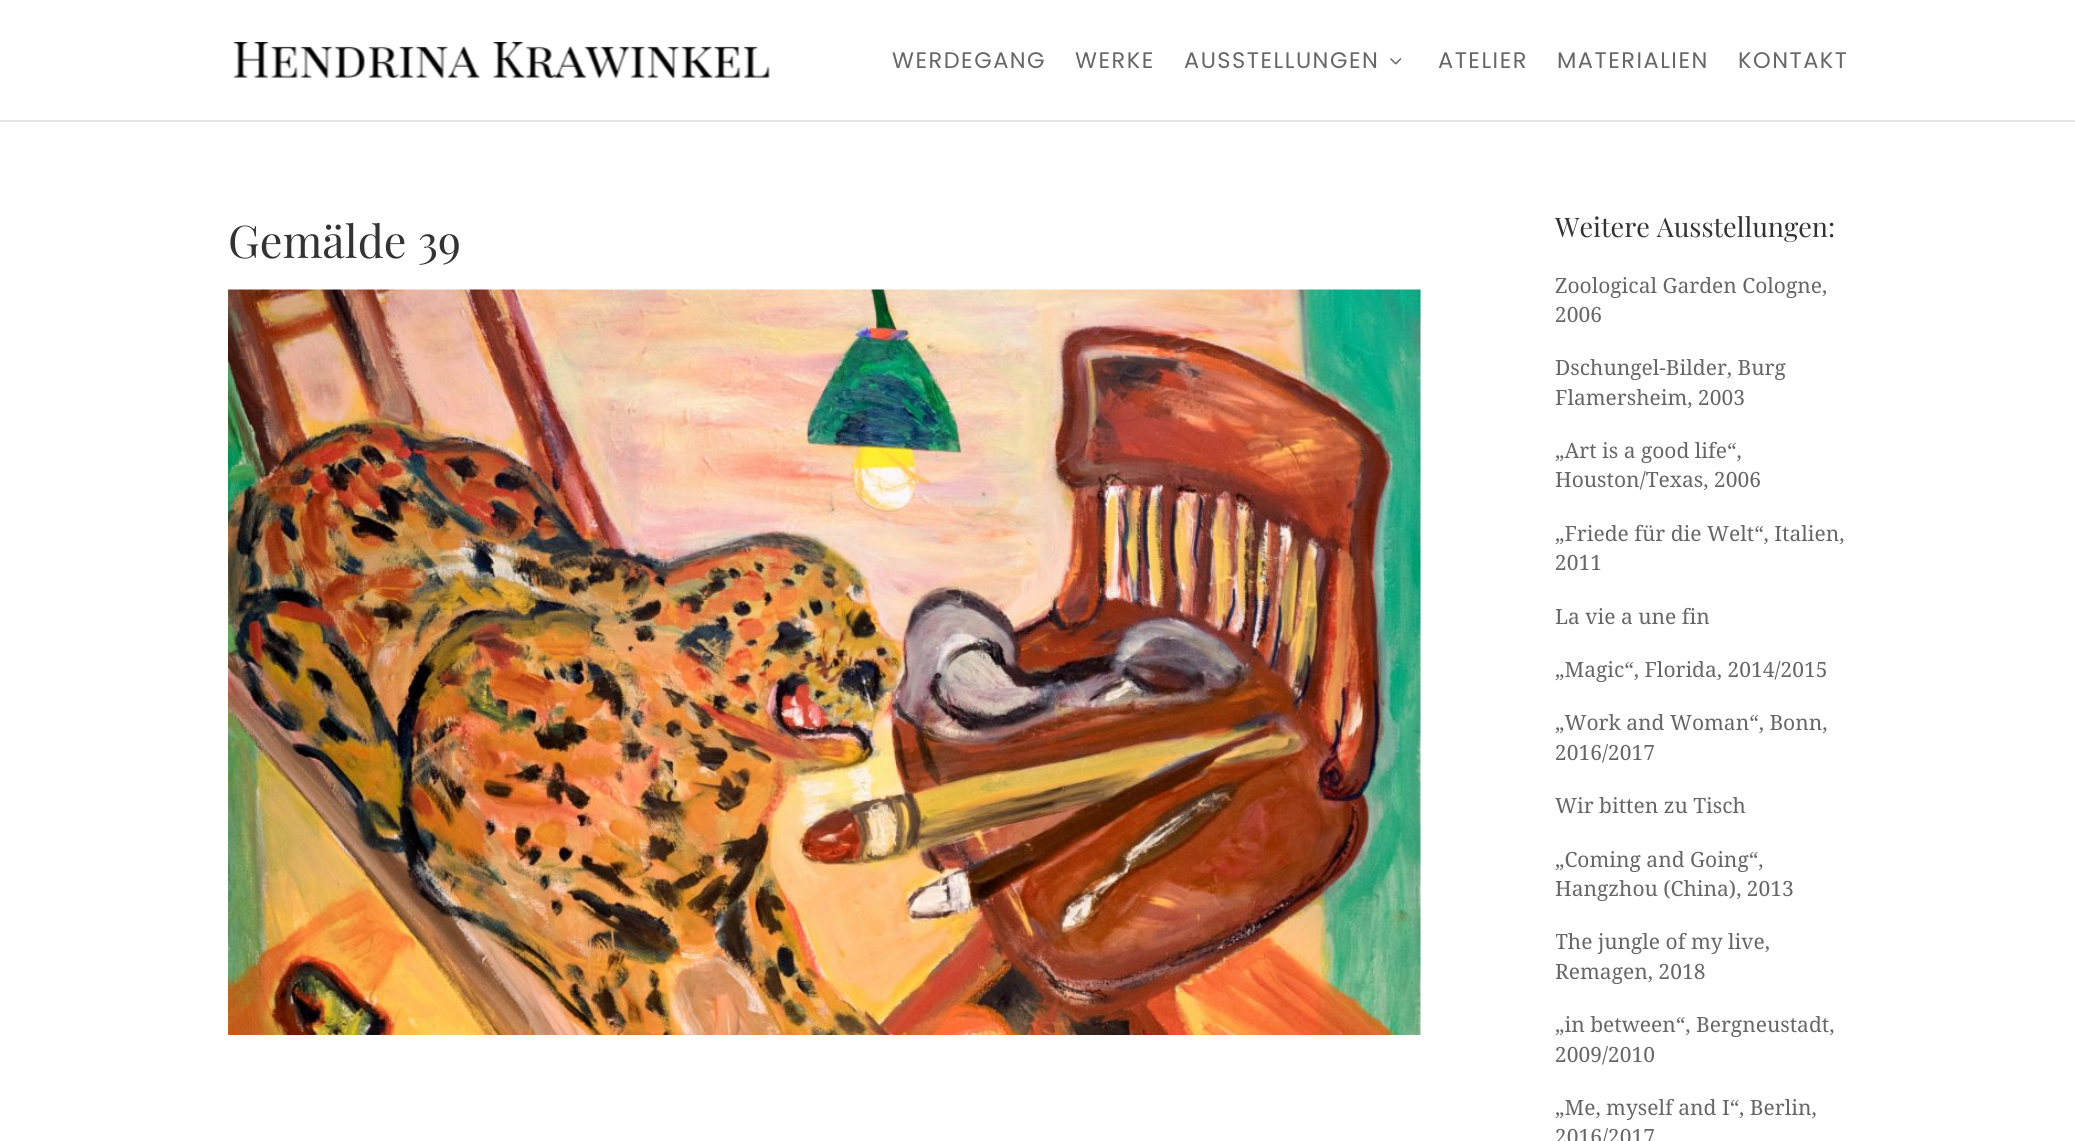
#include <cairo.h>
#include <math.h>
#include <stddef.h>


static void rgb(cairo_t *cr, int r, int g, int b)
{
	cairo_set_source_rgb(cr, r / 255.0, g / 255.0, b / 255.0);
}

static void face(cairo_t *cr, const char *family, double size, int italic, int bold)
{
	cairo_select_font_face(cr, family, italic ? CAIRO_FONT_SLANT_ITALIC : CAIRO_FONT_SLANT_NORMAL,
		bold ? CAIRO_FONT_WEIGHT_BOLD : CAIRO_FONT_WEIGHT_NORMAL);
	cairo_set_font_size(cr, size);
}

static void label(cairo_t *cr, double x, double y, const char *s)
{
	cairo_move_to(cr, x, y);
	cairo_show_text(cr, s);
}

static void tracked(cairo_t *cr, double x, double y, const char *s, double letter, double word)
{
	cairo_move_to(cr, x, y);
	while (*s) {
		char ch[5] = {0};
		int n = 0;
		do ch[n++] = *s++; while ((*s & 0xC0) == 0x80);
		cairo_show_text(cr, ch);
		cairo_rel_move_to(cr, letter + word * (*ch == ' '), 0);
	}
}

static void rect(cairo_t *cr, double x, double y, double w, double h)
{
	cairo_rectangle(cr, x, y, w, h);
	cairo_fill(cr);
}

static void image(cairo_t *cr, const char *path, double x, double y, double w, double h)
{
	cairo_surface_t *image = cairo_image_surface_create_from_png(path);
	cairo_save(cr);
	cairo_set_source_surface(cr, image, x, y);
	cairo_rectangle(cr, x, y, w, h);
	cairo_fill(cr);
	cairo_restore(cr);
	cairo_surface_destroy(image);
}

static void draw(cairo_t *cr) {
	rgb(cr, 255, 255, 255);
	cairo_paint(cr);
	rgb(cr, 230, 230, 230);
	rect(cr, 0, 120, 2075, 2);
	image(cr, "image0.png", 233, 42, 537, 36);
	face(cr, "Poppins", 22.5, 0, 0);
	rgb(cr, 102, 102, 102);
	tracked(cr, 892, 68, "WERDEGANG", 1.5, 0);
	tracked(cr, 1075, 68, "WERKE", 1.5, 0);
	tracked(cr, 1184, 68, "AUSSTELLUNGEN", 1.5, 0);
	image(cr, "image1.png", 1390, 58, 12, 7);
	tracked(cr, 1438, 68, "ATELIER", 1.5, 0);
	tracked(cr, 1557, 68, "MATERIALIEN", 1.5, 0);
	tracked(cr, 1738, 68, "KONTAKT", 1.5, 0);
	face(cr, "Playfair Display", 45, 0, 0);
	rgb(cr, 51, 51, 51);
	label(cr, 228, 258, "Gemälde 39");
	image(cr, "image2.png", 228, 289, 1193, 746);
	face(cr, "Playfair Display", 27, 0, 0);
	label(cr, 1555, 237, "Weitere Ausstellungen:");
	face(cr, "Droid Serif", 21, 0, 0);
	rgb(cr, 102, 102, 102);
	label(cr, 1555, 293, "Zoological Garden Cologne,");
	label(cr, 1555, 322, "2006");
	label(cr, 1555, 375, "Dschungel-Bilder, Burg");
	label(cr, 1555, 405, "Flamersheim, 2003");
	label(cr, 1555, 458, "„Art is a good life“,");
	label(cr, 1555, 487, "Houston/Texas, 2006");
	label(cr, 1555, 541, "„Friede für die Welt“, Italien,");
	label(cr, 1555, 570, "2011");
	label(cr, 1555, 624, "La vie a une fin");
	label(cr, 1555, 677, "„Magic“, Florida, 2014/2015");
	label(cr, 1555, 730, "„Work and Woman“, Bonn,");
	label(cr, 1555, 760, "2016/2017");
	label(cr, 1555, 813, "Wir bitten zu Tisch");
	label(cr, 1555, 867, "„Coming and Going“,");
	label(cr, 1555, 896, "Hangzhou (China), 2013");
	cairo_save(cr);
	cairo_rectangle(cr, 1556, 929, 292, 58);
	cairo_clip(cr);
	label(cr, 1555, 949, "The jungle of my live,");
	cairo_restore(cr);
	label(cr, 1555, 979, "Remagen, 2018");
	label(cr, 1555, 1032, "„in between“, Bergneustadt,");
	label(cr, 1555, 1062, "2009/2010");
	label(cr, 1555, 1115, "„Me, myself and I“, Berlin,");
	label(cr, 1555, 1144, "2016/2017");
}

int main(void) {
	cairo_surface_t *surface = cairo_image_surface_create(CAIRO_FORMAT_RGB24, 2075, 1141);
	cairo_t *cr = cairo_create(surface);
	cairo_font_options_t *options = cairo_font_options_create();
	cairo_font_options_set_hint_metrics(options, CAIRO_HINT_METRICS_OFF);
	cairo_font_options_set_hint_style(options, CAIRO_HINT_STYLE_NONE);
	cairo_set_font_options(cr, options);
	cairo_set_miter_limit(cr, 4);
	draw(cr);
	cairo_surface_write_to_png(surface, "render.png");
	cairo_font_options_destroy(options);
	cairo_destroy(cr);
	cairo_surface_destroy(surface);
	return 0;
}
